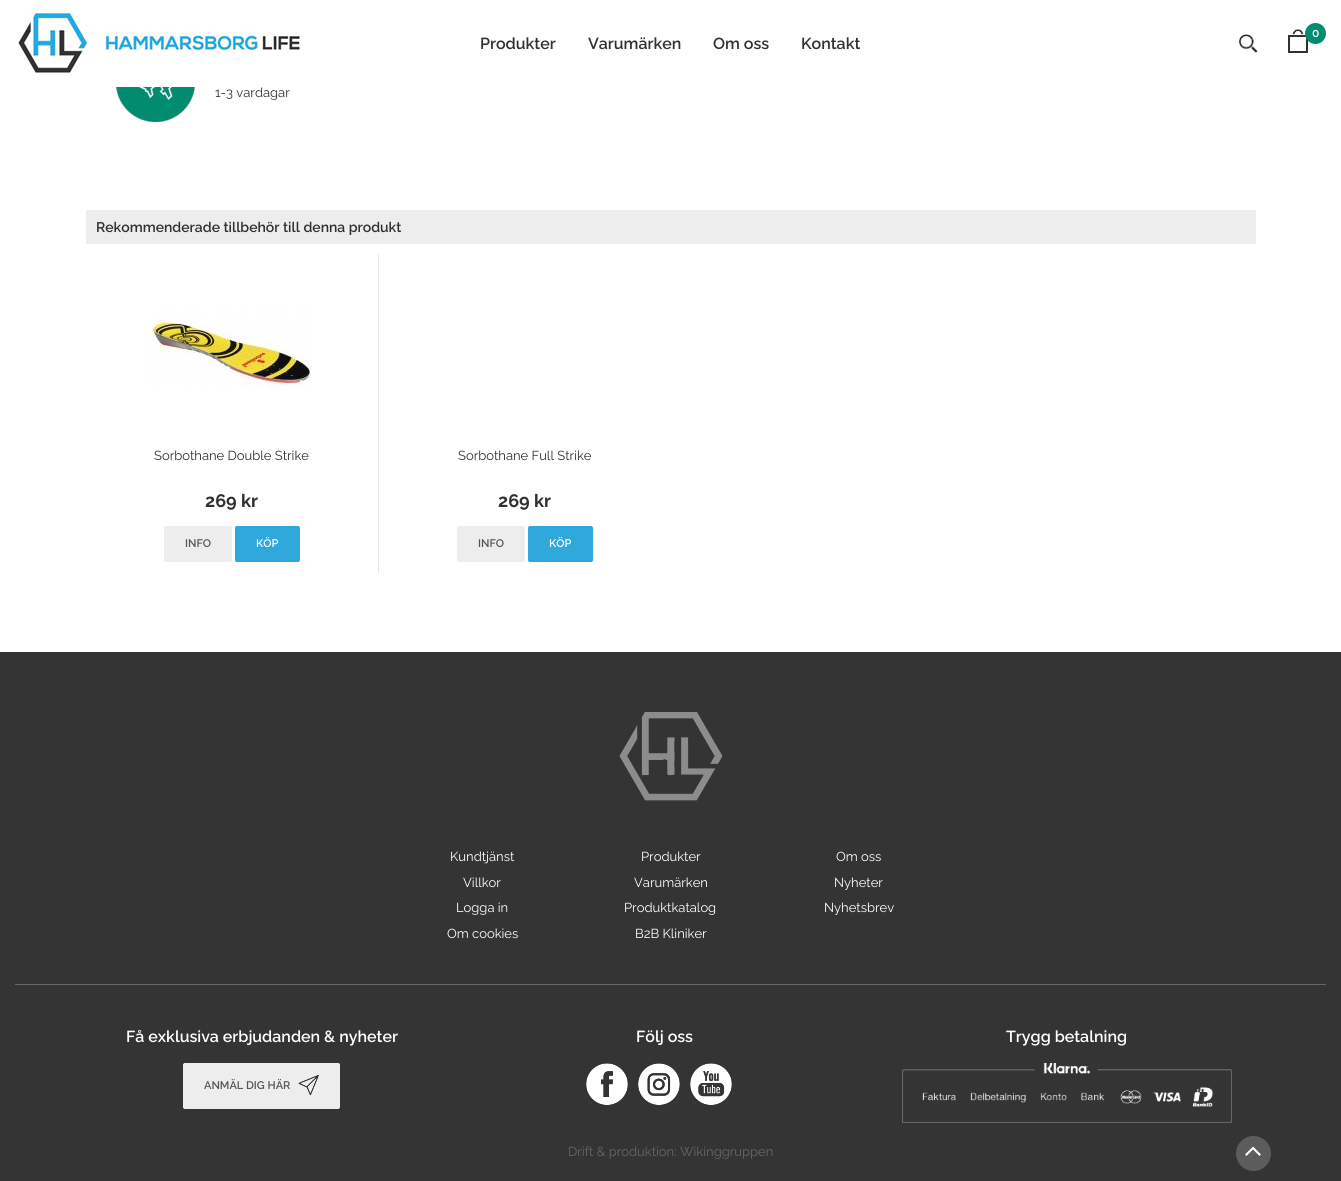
#include <cairo.h>
#include <math.h>
#include <stddef.h>


static void rgb(cairo_t *cr, int r, int g, int b)
{
	cairo_set_source_rgb(cr, r / 255.0, g / 255.0, b / 255.0);
}

static void face(cairo_t *cr, const char *family, double size, int italic, int bold)
{
	cairo_select_font_face(cr, family, italic ? CAIRO_FONT_SLANT_ITALIC : CAIRO_FONT_SLANT_NORMAL,
		bold ? CAIRO_FONT_WEIGHT_BOLD : CAIRO_FONT_WEIGHT_NORMAL);
	cairo_set_font_size(cr, size);
}

static void label(cairo_t *cr, double x, double y, const char *s)
{
	cairo_move_to(cr, x, y);
	cairo_show_text(cr, s);
}

static void rect(cairo_t *cr, double x, double y, double w, double h)
{
	cairo_rectangle(cr, x, y, w, h);
	cairo_fill(cr);
}

static void rrect(cairo_t *cr, double x, double y, double w, double h, double r)
{
	cairo_new_sub_path(cr);
	cairo_arc(cr, x + w - r, y + h - r, r, 0, M_PI / 2);
	cairo_arc(cr, x + r, y + h - r, r, M_PI / 2, M_PI);
	cairo_arc(cr, x + r, y + r, r, M_PI, 1.5 * M_PI);
	cairo_arc(cr, x + w - r, y + r, r, 1.5 * M_PI, 2 * M_PI);
	cairo_close_path(cr);
}

static void image(cairo_t *cr, const char *path, double x, double y, double w, double h)
{
	cairo_surface_t *image = cairo_image_surface_create_from_png(path);
	cairo_save(cr);
	cairo_set_source_surface(cr, image, x, y);
	cairo_rectangle(cr, x, y, w, h);
	cairo_fill(cr);
	cairo_restore(cr);
	cairo_surface_destroy(image);
}

static void draw(cairo_t *cr) {
	rgb(cr, 255, 255, 255);
	cairo_paint(cr);
	image(cr, "image0.png", 18, 13, 282, 60);
	image(cr, "image1.png", 1239, 34, 19, 19);
	image(cr, "image2.png", 1288, 29, 20, 24);
	rgb(cr, 2, 140, 111);
	cairo_arc(cr, 1315.5, 33.5, 10.5, 0, 2 * M_PI);
	cairo_fill(cr);
	face(cr, "Raleway SemiBold", 12, 0, 0);
	rgb(cr, 255, 255, 255);
	label(cr, 1312, 37, "0");
	face(cr, "Raleway SemiBold", 16, 0, 0);
	rgb(cr, 48, 48, 48);
	label(cr, 480, 49, "Produkter");
	label(cr, 588, 49, "Varumärken");
	label(cr, 713, 49, "Om oss");
	label(cr, 801, 49, "Kontakt");
	image(cr, "image3.png", 116, 87, 79, 35);
	face(cr, "Raleway", 13, 0, 0);
	label(cr, 215, 97, "1-3 vardagar");
	rgb(cr, 237, 237, 237);
	rect(cr, 86, 210, 1170, 34);
	face(cr, "Raleway SemiBold", 14, 0, 0);
	rgb(cr, 48, 48, 48);
	label(cr, 96, 232, "Rekommenderade tillbehör till denna produkt");
	image(cr, "image4.png", 144, 309, 168, 80);
	face(cr, "Raleway", 13, 0, 0);
	label(cr, 154, 460, "Sorbothane Double Strike");
	face(cr, "Raleway", 18, 0, 1);
	label(cr, 205, 507, "269 kr");
	rgb(cr, 237, 237, 237);
	rrect(cr, 164.5, 526.5, 67, 35, 1.5);
	cairo_fill_preserve(cr);
	cairo_set_line_width(cr, 1);
	cairo_stroke(cr);
	face(cr, "Raleway SemiBold", 11, 0, 0);
	rgb(cr, 85, 85, 85);
	label(cr, 185, 547, "INFO");
	rgb(cr, 47, 168, 219);
	rrect(cr, 235.5, 526.5, 64, 35, 1.5);
	cairo_fill_preserve(cr);
	cairo_stroke(cr);
	rgb(cr, 255, 255, 255);
	label(cr, 256, 547, "KÖP");
	rgb(cr, 232, 232, 232);
	rect(cr, 378, 254, 1, 319);
	face(cr, "Raleway", 13, 0, 0);
	rgb(cr, 48, 48, 48);
	label(cr, 458, 460, "Sorbothane Full Strike");
	face(cr, "Raleway", 18, 0, 1);
	label(cr, 498, 507, "269 kr");
	rgb(cr, 237, 237, 237);
	rrect(cr, 457.5, 526.5, 67, 35, 1.5);
	cairo_fill_preserve(cr);
	cairo_stroke(cr);
	face(cr, "Raleway SemiBold", 11, 0, 0);
	rgb(cr, 85, 85, 85);
	label(cr, 478, 547, "INFO");
	rgb(cr, 47, 168, 219);
	rrect(cr, 528.5, 526.5, 64, 35, 1.5);
	cairo_fill_preserve(cr);
	cairo_stroke(cr);
	rgb(cr, 255, 255, 255);
	label(cr, 549, 547, "KÖP");
	rgb(cr, 52, 52, 52);
	rect(cr, 0, 652, 1341, 529);
	rgb(cr, 102, 102, 102);
	rect(cr, 15, 984, 1311, 1);
	image(cr, "image5.png", 619, 712, 104, 89);
	face(cr, "Raleway", 13, 0, 0);
	rgb(cr, 255, 255, 255);
	label(cr, 450, 861, "Kundtjänst");
	label(cr, 463, 887, "Villkor");
	label(cr, 456, 912, "Logga in");
	label(cr, 447, 938, "Om cookies");
	label(cr, 641, 861, "Produkter");
	label(cr, 634, 887, "Varumärken");
	label(cr, 624, 912, "Produktkatalog");
	label(cr, 635, 938, "B2B Kliniker");
	label(cr, 836, 861, "Om oss");
	label(cr, 834, 887, "Nyheter");
	label(cr, 824, 912, "Nyhetsbrev");
	face(cr, "Raleway SemiBold", 16, 0, 0);
	label(cr, 126, 1042, "Få exklusiva erbjudanden & nyheter");
	rgb(cr, 237, 237, 237);
	rrect(cr, 183.5, 1063.5, 156, 45, 1.5);
	cairo_fill_preserve(cr);
	cairo_stroke(cr);
	face(cr, "Raleway SemiBold", 11, 0, 0);
	rgb(cr, 85, 85, 85);
	label(cr, 204, 1089, "ANMÄL DIG HÄR");
	image(cr, "image6.png", 298, 1075, 21, 21);
	face(cr, "Raleway SemiBold", 16, 0, 0);
	rgb(cr, 255, 255, 255);
	label(cr, 636, 1042, "Följ oss");
	image(cr, "image7.png", 586, 1063, 42, 42);
	image(cr, "image8.png", 638, 1063, 42, 42);
	image(cr, "image9.png", 690, 1063, 42, 42);
	label(cr, 1006, 1042, "Trygg betalning");
	image(cr, "image10.png", 902, 1063, 330, 60);
	face(cr, "Raleway", 13, 0, 0);
	rgb(cr, 102, 102, 102);
	label(cr, 568, 1156, "Drift & produktion: Wikinggruppen");
	rgb(cr, 92, 92, 92);
	cairo_new_path(cr);
	cairo_arc(cr, 1253.5, 1153.5, 17.5, 0, 2 * M_PI);
	cairo_fill(cr);
	image(cr, "image11.png", 1245, 1146, 16, 10);
}

int main(void) {
	cairo_surface_t *surface = cairo_image_surface_create(CAIRO_FORMAT_RGB24, 1341, 1181);
	cairo_t *cr = cairo_create(surface);
	cairo_font_options_t *options = cairo_font_options_create();
	cairo_font_options_set_hint_metrics(options, CAIRO_HINT_METRICS_OFF);
	cairo_font_options_set_hint_style(options, CAIRO_HINT_STYLE_NONE);
	cairo_set_font_options(cr, options);
	cairo_set_miter_limit(cr, 4);
	draw(cr);
	cairo_surface_write_to_png(surface, "render.png");
	cairo_font_options_destroy(options);
	cairo_destroy(cr);
	cairo_surface_destroy(surface);
	return 0;
}
